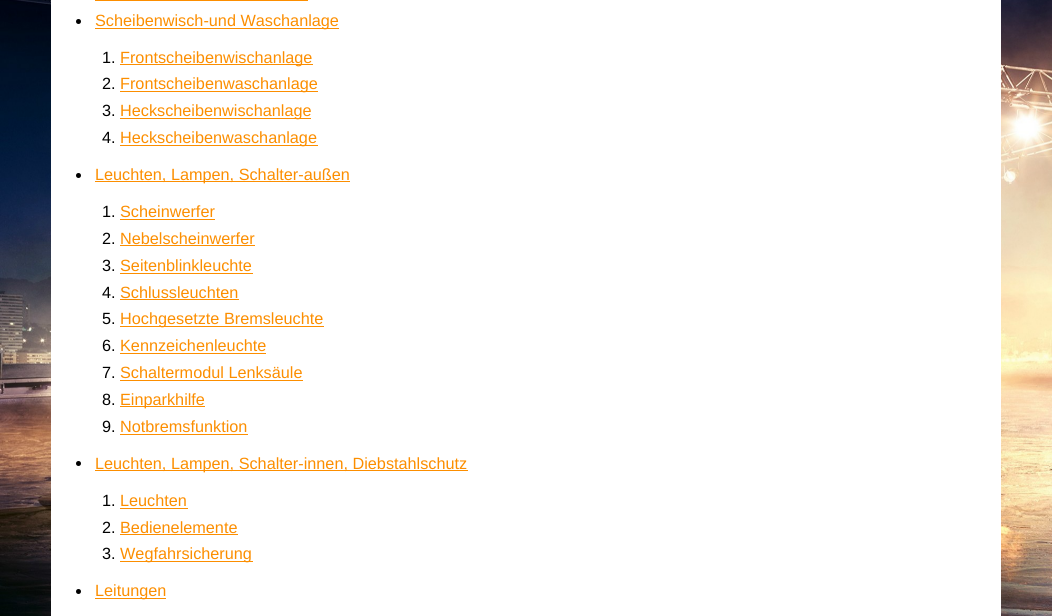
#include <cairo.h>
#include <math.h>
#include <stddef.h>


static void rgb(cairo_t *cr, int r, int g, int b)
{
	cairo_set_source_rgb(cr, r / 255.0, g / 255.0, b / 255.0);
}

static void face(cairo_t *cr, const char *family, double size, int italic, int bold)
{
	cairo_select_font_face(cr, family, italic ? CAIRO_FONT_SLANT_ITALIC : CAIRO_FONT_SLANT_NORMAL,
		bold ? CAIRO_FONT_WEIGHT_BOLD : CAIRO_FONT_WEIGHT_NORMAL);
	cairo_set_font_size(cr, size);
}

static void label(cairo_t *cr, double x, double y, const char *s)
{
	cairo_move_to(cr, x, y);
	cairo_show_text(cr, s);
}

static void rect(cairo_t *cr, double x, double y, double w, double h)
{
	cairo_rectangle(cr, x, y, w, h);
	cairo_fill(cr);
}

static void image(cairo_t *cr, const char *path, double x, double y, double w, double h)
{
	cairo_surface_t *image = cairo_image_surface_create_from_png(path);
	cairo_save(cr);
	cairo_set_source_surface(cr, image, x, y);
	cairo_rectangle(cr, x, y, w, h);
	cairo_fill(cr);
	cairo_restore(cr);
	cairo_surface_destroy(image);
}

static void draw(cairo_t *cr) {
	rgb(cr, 255, 255, 255);
	cairo_paint(cr);
	image(cr, "image0.png", 0, 0, 1052, 616);
	rgb(cr, 255, 255, 255);
	rect(cr, 51, 0, 950, 616);
	rgb(cr, 252, 142, 0);
	rect(cr, 95, 0, 213, 1);
	rgb(cr, 0, 0, 0);
	cairo_arc(cr, 78.5, 21.5, 2.5, 0, 2 * M_PI);
	cairo_fill(cr);
	rgb(cr, 252, 142, 0);
	rect(cr, 95, 28, 244, 1);
	face(cr, "Liberation Sans", 16.25, 0, 0);
	label(cr, 95, 26, "Scheibenwisch-und Waschanlage");
	rgb(cr, 0, 0, 0);
	label(cr, 102, 63, "1.");
	rgb(cr, 252, 142, 0);
	rect(cr, 120, 64, 193, 1);
	label(cr, 120, 63, "Frontscheibenwischanlage");
	rgb(cr, 0, 0, 0);
	label(cr, 102, 89, "2.");
	rgb(cr, 252, 142, 0);
	rect(cr, 120, 91, 198, 1);
	label(cr, 120, 89, "Frontscheibenwaschanlage");
	rgb(cr, 0, 0, 0);
	label(cr, 102, 116, "3.");
	rgb(cr, 252, 142, 0);
	rect(cr, 120, 118, 191, 1);
	label(cr, 120, 116, "Heckscheibenwischanlage");
	rgb(cr, 0, 0, 0);
	label(cr, 102, 143, "4.");
	rgb(cr, 252, 142, 0);
	rect(cr, 120, 145, 198, 1);
	label(cr, 120, 143, "Heckscheibenwaschanlage");
	rgb(cr, 0, 0, 0);
	cairo_new_path(cr);
	cairo_arc(cr, 78.5, 175.5, 2.5, 0, 2 * M_PI);
	cairo_fill(cr);
	rgb(cr, 252, 142, 0);
	rect(cr, 95, 181, 255, 1);
	label(cr, 95, 180, "Leuchten, Lampen, Schalter-außen");
	rgb(cr, 0, 0, 0);
	label(cr, 102, 217, "1.");
	rgb(cr, 252, 142, 0);
	label(cr, 120, 217, "Scheinwerfer");
	rect(cr, 120, 219, 95, 1);
	rgb(cr, 0, 0, 0);
	label(cr, 102, 244, "2.");
	rgb(cr, 252, 142, 0);
	label(cr, 120, 244, "Nebelscheinwerfer");
	rect(cr, 120, 245, 135, 1);
	rgb(cr, 0, 0, 0);
	label(cr, 102, 271, "3.");
	rgb(cr, 252, 142, 0);
	label(cr, 120, 271, "Seitenblinkleuchte");
	rect(cr, 120, 273, 133, 1);
	rgb(cr, 0, 0, 0);
	label(cr, 102, 298, "4.");
	rgb(cr, 252, 142, 0);
	label(cr, 120, 298, "Schlussleuchten");
	rect(cr, 120, 299, 119, 1);
	rgb(cr, 0, 0, 0);
	label(cr, 102, 324, "5.");
	rgb(cr, 252, 142, 0);
	rect(cr, 120, 326, 204, 1);
	label(cr, 120, 324, "Hochgesetzte Bremsleuchte");
	rgb(cr, 0, 0, 0);
	label(cr, 102, 351, "6.");
	rgb(cr, 252, 142, 0);
	label(cr, 120, 351, "Kennzeichenleuchte");
	rect(cr, 120, 353, 146, 1);
	rgb(cr, 0, 0, 0);
	label(cr, 102, 378, "7.");
	rgb(cr, 252, 142, 0);
	label(cr, 120, 378, "Schaltermodul Lenksäule");
	rect(cr, 120, 380, 183, 1);
	rgb(cr, 0, 0, 0);
	label(cr, 102, 405, "8.");
	rgb(cr, 252, 142, 0);
	rect(cr, 120, 406, 85, 1);
	label(cr, 120, 405, "Einparkhilfe");
	rgb(cr, 0, 0, 0);
	label(cr, 102, 432, "9.");
	rgb(cr, 252, 142, 0);
	label(cr, 120, 432, "Notbremsfunktion");
	rect(cr, 120, 434, 128, 1);
	rgb(cr, 0, 0, 0);
	cairo_new_path(cr);
	cairo_arc(cr, 78.5, 463.5, 2.5, 0, 2 * M_PI);
	cairo_fill(cr);
	rgb(cr, 252, 142, 0);
	rect(cr, 95, 470, 373, 1);
	label(cr, 95, 469, "Leuchten, Lampen, Schalter-innen, Diebstahlschutz");
	rgb(cr, 0, 0, 0);
	label(cr, 102, 506, "1.");
	rgb(cr, 252, 142, 0);
	label(cr, 120, 506, "Leuchten");
	rect(cr, 120, 508, 68, 1);
	rgb(cr, 0, 0, 0);
	label(cr, 102, 533, "2.");
	rgb(cr, 252, 142, 0);
	label(cr, 120, 533, "Bedienelemente");
	rect(cr, 120, 534, 118, 1);
	rgb(cr, 0, 0, 0);
	label(cr, 102, 559, "3.");
	rgb(cr, 252, 142, 0);
	rect(cr, 120, 561, 133, 1);
	label(cr, 120, 559, "Wegfahrsicherung");
	rgb(cr, 0, 0, 0);
	cairo_new_path(cr);
	cairo_arc(cr, 78.5, 591.5, 2.5, 0, 2 * M_PI);
	cairo_fill(cr);
	rgb(cr, 252, 142, 0);
	rect(cr, 95, 598, 71, 1);
	label(cr, 95, 596, "Leitungen");
}

int main(void) {
	cairo_surface_t *surface = cairo_image_surface_create(CAIRO_FORMAT_RGB24, 1052, 616);
	cairo_t *cr = cairo_create(surface);
	cairo_font_options_t *options = cairo_font_options_create();
	cairo_font_options_set_hint_metrics(options, CAIRO_HINT_METRICS_OFF);
	cairo_font_options_set_hint_style(options, CAIRO_HINT_STYLE_NONE);
	cairo_set_font_options(cr, options);
	cairo_set_miter_limit(cr, 4);
	draw(cr);
	cairo_surface_write_to_png(surface, "render.png");
	cairo_font_options_destroy(options);
	cairo_destroy(cr);
	cairo_surface_destroy(surface);
	return 0;
}
